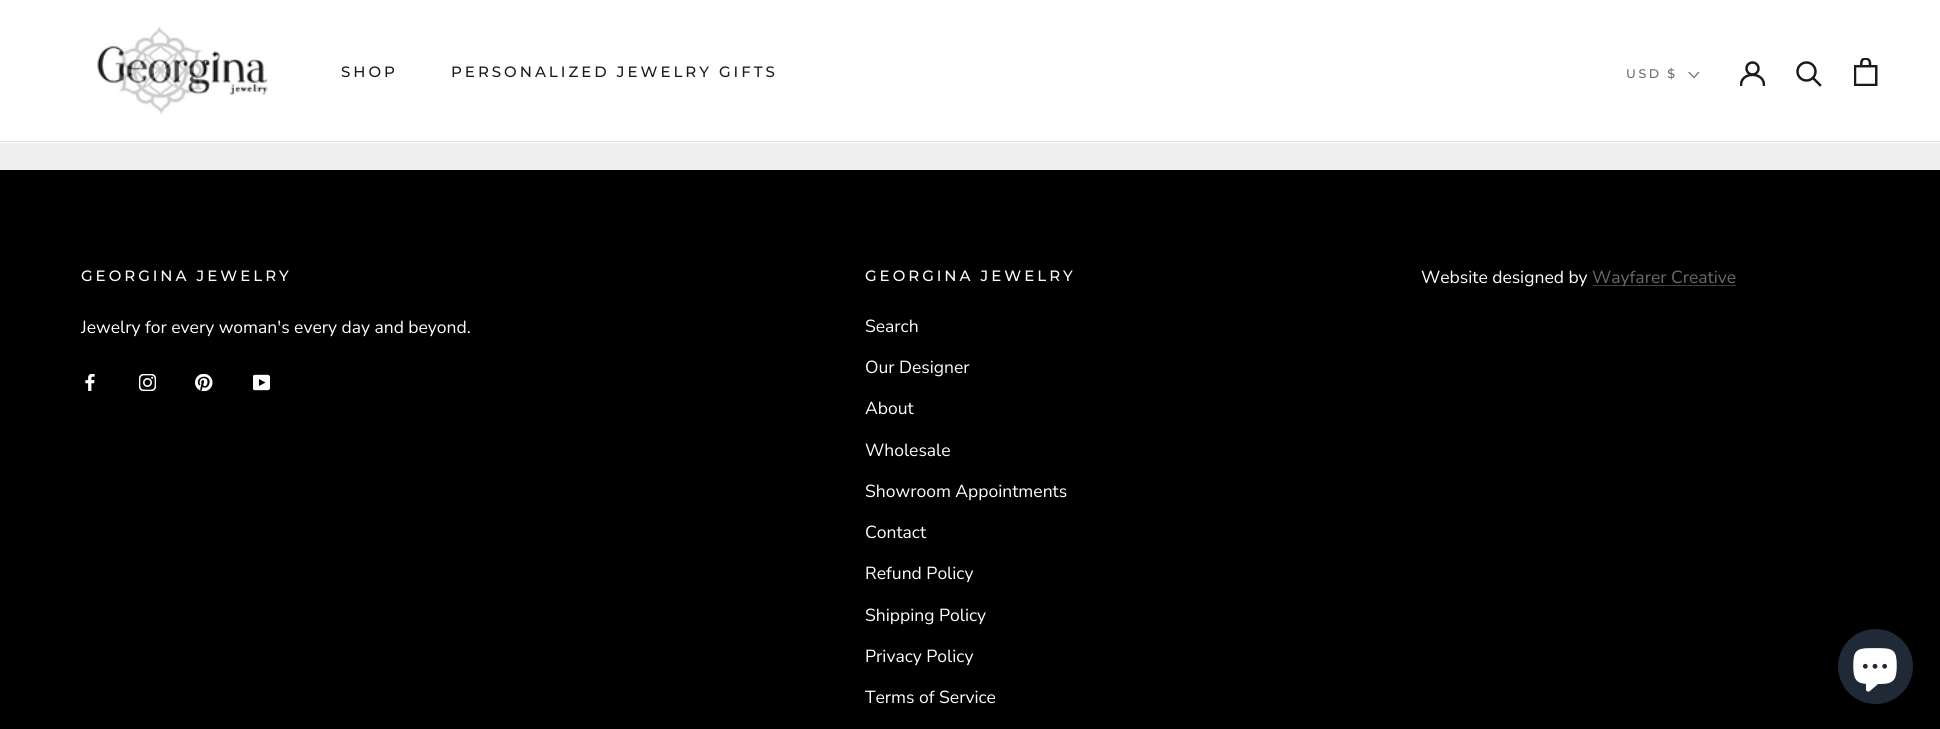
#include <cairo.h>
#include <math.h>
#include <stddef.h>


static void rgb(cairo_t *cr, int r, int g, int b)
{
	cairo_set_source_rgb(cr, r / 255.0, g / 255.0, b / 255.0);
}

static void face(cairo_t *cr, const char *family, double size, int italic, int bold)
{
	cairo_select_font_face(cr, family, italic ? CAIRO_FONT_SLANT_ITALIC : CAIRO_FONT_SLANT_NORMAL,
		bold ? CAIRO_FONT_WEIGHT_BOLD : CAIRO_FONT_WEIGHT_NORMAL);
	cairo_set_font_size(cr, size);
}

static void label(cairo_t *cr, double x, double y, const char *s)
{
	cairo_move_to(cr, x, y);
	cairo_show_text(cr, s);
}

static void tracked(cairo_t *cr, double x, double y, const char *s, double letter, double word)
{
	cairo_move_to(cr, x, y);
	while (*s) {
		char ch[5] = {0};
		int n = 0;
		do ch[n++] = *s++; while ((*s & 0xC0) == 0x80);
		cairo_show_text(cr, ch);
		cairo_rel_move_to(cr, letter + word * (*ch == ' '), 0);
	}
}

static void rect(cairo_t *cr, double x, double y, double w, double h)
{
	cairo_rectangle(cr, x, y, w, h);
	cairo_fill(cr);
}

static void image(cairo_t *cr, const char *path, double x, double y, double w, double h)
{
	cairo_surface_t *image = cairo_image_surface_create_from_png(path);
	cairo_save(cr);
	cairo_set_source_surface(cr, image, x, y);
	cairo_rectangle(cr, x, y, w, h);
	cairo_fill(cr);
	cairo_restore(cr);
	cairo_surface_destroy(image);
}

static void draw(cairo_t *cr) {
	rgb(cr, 239, 239, 239);
	cairo_paint(cr);
	rgb(cr, 255, 255, 255);
	rect(cr, 0, 0, 1940, 143);
	rgb(cr, 221, 221, 221);
	rect(cr, 0, 141, 1940, 1);
	image(cr, "image0.png", 97, 26, 171, 90);
	face(cr, "Montserrat Medium", 15, 0, 0);
	rgb(cr, 28, 27, 27);
	tracked(cr, 341, 77, "SHOP", 3, 0);
	tracked(cr, 451, 77, "PERSONALIZED JEWELRY GIFTS", 3, 0);
	face(cr, "Montserrat Medium", 12.5, 0, 0);
	rgb(cr, 106, 106, 106);
	tracked(cr, 1626, 78, "USD $", 2.5, 0);
	cairo_new_path(cr);
	cairo_move_to(cr, 1698.5, 72.5);
	cairo_line_to(cr, 1694, 77.5);
	cairo_line_to(cr, 1689, 72.5);
	cairo_set_line_width(cr, 1.2);
	cairo_set_line_cap(cr, CAIRO_LINE_CAP_SQUARE);
	cairo_stroke(cr);
	cairo_save(cr);
	cairo_rectangle(cr, 1740, 61, 25, 25);
	cairo_clip(cr);
	cairo_new_path(cr);
	cairo_move_to(cr, 1741, 85);
	cairo_curve_to(cr, 1741, 71.5, 1764, 71.5, 1764, 85);
	rgb(cr, 28, 27, 27);
	cairo_set_line_width(cr, 2.5);
	cairo_stroke(cr);
	cairo_restore(cr);
	cairo_arc(cr, 1752.5, 68.5, 6, 0, 2 * M_PI);
	rgb(cr, 28, 27, 27);
	cairo_set_line_width(cr, 2.5);
	cairo_set_line_cap(cr, CAIRO_LINE_CAP_BUTT);
	cairo_stroke(cr);
	cairo_new_path(cr);
	cairo_move_to(cr, 1820, 85);
	cairo_line_to(cr, 1813, 78);
	cairo_set_line_cap(cr, CAIRO_LINE_CAP_SQUARE);
	cairo_stroke(cr);
	cairo_arc(cr, 1806.5, 71.5, 9, 0, 2 * M_PI);
	cairo_set_line_cap(cr, CAIRO_LINE_CAP_BUTT);
	cairo_stroke(cr);
	image(cr, "image1.png", 1854, 58, 24, 28);
	rgb(cr, 0, 0, 0);
	rect(cr, 0, 170, 1940, 559);
	face(cr, "Montserrat Medium", 15, 0, 0);
	rgb(cr, 255, 255, 255);
	tracked(cr, 81, 281, "GEORGINA JEWELRY", 3, 0);
	face(cr, "Nunito Sans", 17.5, 0, 0);
	label(cr, 81, 333, "Jewelry for every woman's every day and beyond.");
	image(cr, "image2.png", 85, 374, 10, 17);
	image(cr, "image3.png", 139, 374, 17, 17);
	image(cr, "image4.png", 195, 374, 18, 17);
	image(cr, "image5.png", 253, 374, 17, 17);
	face(cr, "Montserrat Medium", 15, 0, 0);
	tracked(cr, 865, 281, "GEORGINA JEWELRY", 3, 0);
	face(cr, "Nunito Sans", 17.5, 0, 0);
	label(cr, 865, 332, "Search");
	label(cr, 865, 373, "Our Designer");
	label(cr, 865, 414, "About");
	label(cr, 865, 456, "Wholesale");
	label(cr, 865, 497, "Showroom Appointments");
	label(cr, 865, 538, "Contact");
	label(cr, 865, 579, "Refund Policy");
	label(cr, 865, 621, "Shipping Policy");
	label(cr, 865, 662, "Privacy Policy");
	label(cr, 865, 703, "Terms of Service");
	label(cr, 1421, 283, "Website designed by");
	rgb(cr, 64, 64, 64);
	rect(cr, 1593, 285, 143, 1);
	rgb(cr, 106, 106, 106);
	label(cr, 1592, 283, "Wayfarer Creative");
	rgb(cr, 32, 42, 54);
	cairo_new_path(cr);
	cairo_arc(cr, 1875.5, 666.5, 37.5, 0, 2 * M_PI);
	cairo_fill(cr);
	image(cr, "image6.png", 1853, 648, 44, 44);
}

int main(void) {
	cairo_surface_t *surface = cairo_image_surface_create(CAIRO_FORMAT_RGB24, 1940, 729);
	cairo_t *cr = cairo_create(surface);
	cairo_font_options_t *options = cairo_font_options_create();
	cairo_font_options_set_hint_metrics(options, CAIRO_HINT_METRICS_OFF);
	cairo_font_options_set_hint_style(options, CAIRO_HINT_STYLE_NONE);
	cairo_set_font_options(cr, options);
	cairo_set_miter_limit(cr, 4);
	draw(cr);
	cairo_surface_write_to_png(surface, "render.png");
	cairo_font_options_destroy(options);
	cairo_destroy(cr);
	cairo_surface_destroy(surface);
	return 0;
}
